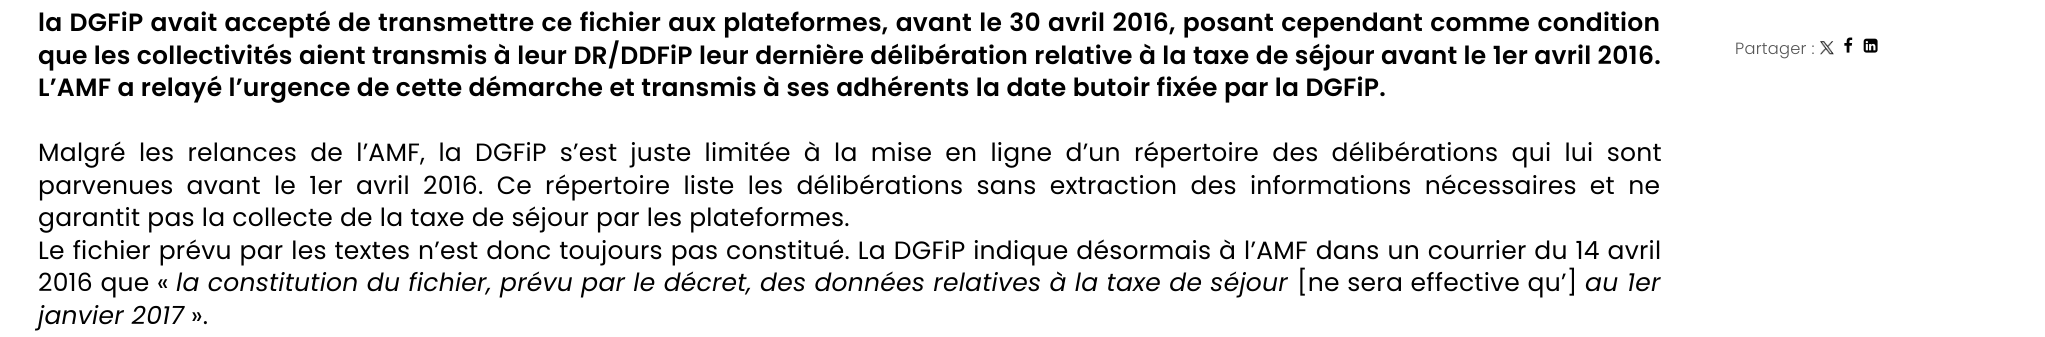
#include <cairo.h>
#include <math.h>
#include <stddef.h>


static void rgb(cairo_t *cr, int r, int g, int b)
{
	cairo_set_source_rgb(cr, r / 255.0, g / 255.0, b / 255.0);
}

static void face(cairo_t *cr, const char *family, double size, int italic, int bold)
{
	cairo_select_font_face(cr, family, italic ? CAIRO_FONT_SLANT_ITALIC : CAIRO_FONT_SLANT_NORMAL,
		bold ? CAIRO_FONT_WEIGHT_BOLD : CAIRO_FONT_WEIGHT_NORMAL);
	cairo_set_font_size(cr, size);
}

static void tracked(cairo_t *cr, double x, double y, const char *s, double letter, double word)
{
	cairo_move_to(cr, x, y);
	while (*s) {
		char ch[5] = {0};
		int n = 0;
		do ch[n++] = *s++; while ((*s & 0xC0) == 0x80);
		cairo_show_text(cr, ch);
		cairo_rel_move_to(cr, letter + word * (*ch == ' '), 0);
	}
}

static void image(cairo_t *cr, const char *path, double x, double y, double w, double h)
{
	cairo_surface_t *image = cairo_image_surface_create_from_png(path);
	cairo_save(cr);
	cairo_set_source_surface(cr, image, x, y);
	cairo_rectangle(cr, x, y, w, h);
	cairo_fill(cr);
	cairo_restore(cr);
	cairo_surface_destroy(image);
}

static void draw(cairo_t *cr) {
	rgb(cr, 255, 255, 255);
	cairo_paint(cr);
	face(cr, "Poppins SemiBold", 25, 0, 0);
	rgb(cr, 0, 0, 0);
	tracked(cr, 38, 31, "la DGFiP avait accepté de transmettre ce fichier aux plateformes, avant le 30 avril 2016, posant cependant comme condition", 0.25, 1);
	tracked(cr, 38, 64, "que les collectivités aient transmis à leur DR/DDFiP leur dernière délibération relative à la taxe de séjour avant le 1er avril 2016.", 0.25, 0);
	tracked(cr, 38, 96, "L’AMF a relayé l’urgence de cette démarche et transmis à ses adhérents la date butoir fixée par la DGFiP.", 0.25, 0);
	face(cr, "Poppins", 25, 0, 0);
	tracked(cr, 38, 161, "Malgré les relances de l’AMF, la DGFiP s’est juste limitée à la mise en ligne d’un répertoire des délibérations qui lui sont", 0.25, 6.2);
	tracked(cr, 38, 194, "parvenues avant le 1er avril 2016. Ce répertoire liste les délibérations sans extraction des informations nécessaires et ne", 0.25, 6.25);
	tracked(cr, 38, 226, "garantit pas la collecte de la taxe de séjour par les plateformes.", 0.25, 0);
	tracked(cr, 38, 259, "Le fichier prévu par les textes n’est donc toujours pas constitué. La DGFiP indique désormais à l’AMF dans un courrier du 14 avril", 0.25, 0.9);
	tracked(cr, 38, 291, "2016 que «", 0.25, 0.5);
	face(cr, "Poppins", 25, 1, 0);
	tracked(cr, 176, 291, "la constitution du fichier, prévu par le décret, des données relatives à la taxe de séjour", 0.25, 0.5);
	face(cr, "Poppins", 25, 0, 0);
	tracked(cr, 1297, 291, "[ne sera effective qu’]", 0.25, 0.5);
	face(cr, "Poppins", 25, 1, 0);
	tracked(cr, 1585, 291, "au 1er", 0.25, 1);
	tracked(cr, 38, 324, "janvier 2017", 0.25, 0);
	face(cr, "Poppins", 25, 0, 0);
	tracked(cr, 191, 324, "».", 0.25, 0);
	face(cr, "Poppins Light", 16.25, 0, 0);
	rgb(cr, 85, 85, 85);
	tracked(cr, 1735, 54, "Partager :", 0.25, 0);
	image(cr, "image0.png", 1820, 41, 14, 14);
	image(cr, "image1.png", 1844, 37, 9, 16);
	image(cr, "image2.png", 1863, 38, 15, 15);
}

int main(void) {
	cairo_surface_t *surface = cairo_image_surface_create(CAIRO_FORMAT_RGB24, 2045, 337);
	cairo_t *cr = cairo_create(surface);
	cairo_font_options_t *options = cairo_font_options_create();
	cairo_font_options_set_hint_metrics(options, CAIRO_HINT_METRICS_OFF);
	cairo_font_options_set_hint_style(options, CAIRO_HINT_STYLE_NONE);
	cairo_set_font_options(cr, options);
	cairo_set_miter_limit(cr, 4);
	draw(cr);
	cairo_surface_write_to_png(surface, "render.png");
	cairo_font_options_destroy(options);
	cairo_destroy(cr);
	cairo_surface_destroy(surface);
	return 0;
}
